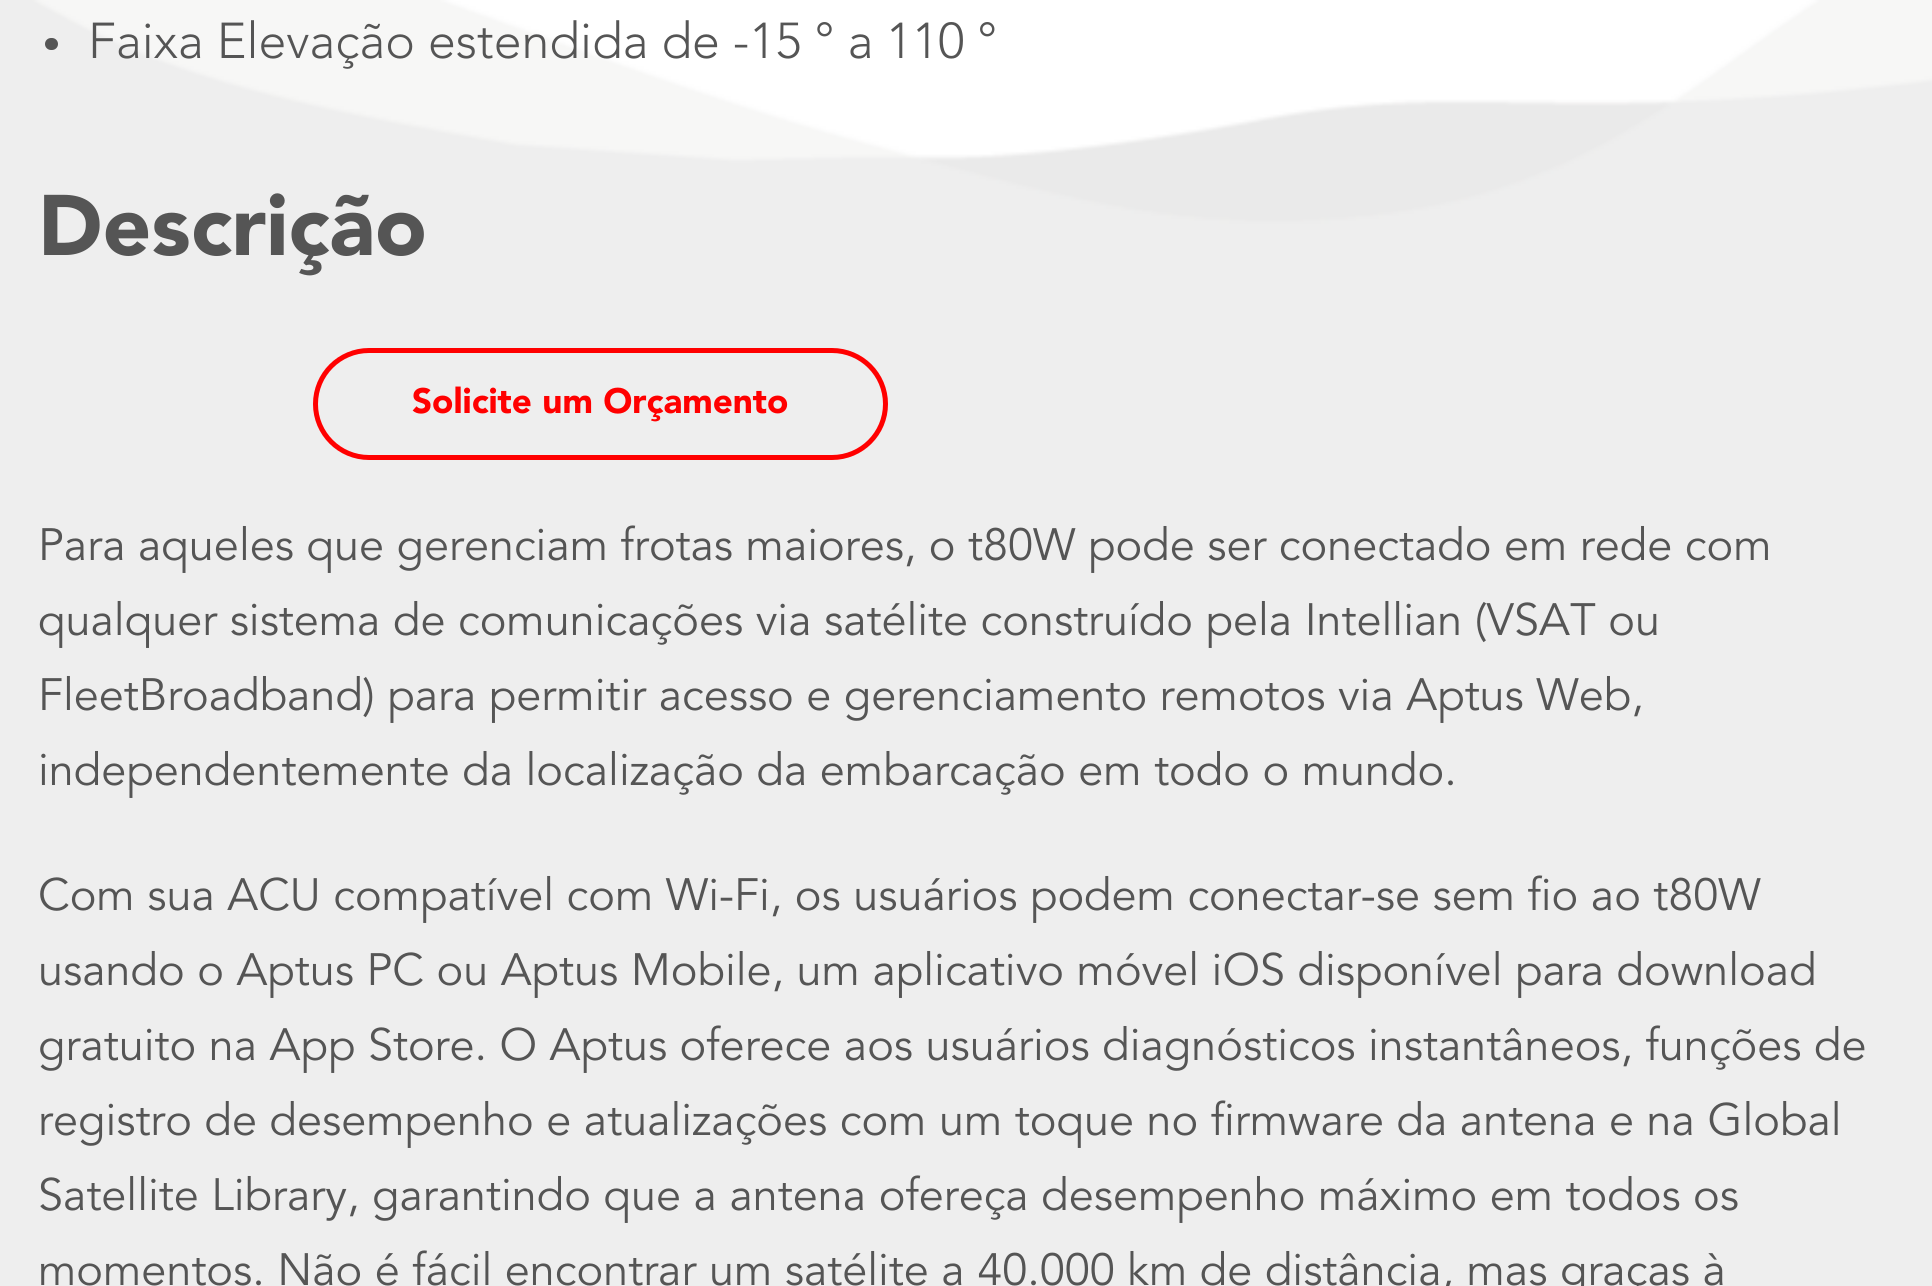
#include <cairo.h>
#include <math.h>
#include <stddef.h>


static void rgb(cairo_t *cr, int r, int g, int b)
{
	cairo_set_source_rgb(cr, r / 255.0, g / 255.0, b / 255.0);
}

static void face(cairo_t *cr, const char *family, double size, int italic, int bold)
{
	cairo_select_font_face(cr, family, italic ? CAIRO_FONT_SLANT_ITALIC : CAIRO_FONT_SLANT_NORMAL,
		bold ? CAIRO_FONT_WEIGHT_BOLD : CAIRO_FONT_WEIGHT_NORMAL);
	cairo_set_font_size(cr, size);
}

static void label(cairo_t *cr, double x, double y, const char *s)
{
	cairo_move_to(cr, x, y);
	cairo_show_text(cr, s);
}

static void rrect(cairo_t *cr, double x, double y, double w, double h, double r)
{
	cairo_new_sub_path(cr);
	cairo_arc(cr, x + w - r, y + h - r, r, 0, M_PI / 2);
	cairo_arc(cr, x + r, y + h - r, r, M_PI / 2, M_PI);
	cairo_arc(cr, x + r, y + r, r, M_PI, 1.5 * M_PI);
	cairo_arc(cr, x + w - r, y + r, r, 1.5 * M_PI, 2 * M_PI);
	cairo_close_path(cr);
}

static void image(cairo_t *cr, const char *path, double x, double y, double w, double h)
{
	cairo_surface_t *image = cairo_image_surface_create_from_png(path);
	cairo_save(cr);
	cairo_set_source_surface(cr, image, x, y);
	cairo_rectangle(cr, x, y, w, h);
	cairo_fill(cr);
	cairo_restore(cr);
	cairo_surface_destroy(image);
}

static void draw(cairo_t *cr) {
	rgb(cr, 255, 255, 255);
	cairo_paint(cr);
	image(cr, "image0.png", 0, 0, 1932, 1286);
	rgb(cr, 85, 85, 85);
	rrect(cr, 45, 38, 13, 12, 6);
	cairo_fill(cr);
	face(cr, "Avenir Light", 50, 0, 0);
	label(cr, 88, 58, "Faixa Elevação estendida de -15 ° a 110 °");
	face(cr, "Avenir Black", 85, 0, 0);
	label(cr, 38, 255, "Descrição");
	rrect(cr, 315.5, 350.5, 570, 107, 53.5);
	rgb(cr, 255, 0, 0);
	cairo_set_line_width(cr, 5);
	cairo_stroke(cr);
	face(cr, "Avenir Black", 35, 0, 0);
	label(cr, 412, 413, "Solicite um Orçamento");
	face(cr, "Avenir", 45, 0, 0);
	rgb(cr, 85, 85, 85);
	label(cr, 38, 560, "Para aqueles que gerenciam frotas maiores, o t80W pode ser conectado em rede com");
	label(cr, 38, 635, "qualquer sistema de comunicações via satélite construído pela Intellian (VSAT ou");
	label(cr, 38, 710, "FleetBroadband) para permitir acesso e gerenciamento remotos via Aptus Web,");
	label(cr, 38, 785, "independentemente da localização da embarcação em todo o mundo.");
	label(cr, 38, 910, "Com sua ACU compatível com Wi-Fi, os usuários podem conectar-se sem fio ao t80W");
	label(cr, 38, 985, "usando o Aptus PC ou Aptus Mobile, um aplicativo móvel iOS disponível para download");
	label(cr, 38, 1060, "gratuito na App Store. O Aptus oferece aos usuários diagnósticos instantâneos, funções de");
	label(cr, 38, 1135, "registro de desempenho e atualizações com um toque no firmware da antena e na Global");
	label(cr, 38, 1210, "Satellite Library, garantindo que a antena ofereça desempenho máximo em todos os");
	label(cr, 38, 1285, "momentos. Não é fácil encontrar um satélite a 40.000 km de distância, mas graças à");
}

int main(void) {
	cairo_surface_t *surface = cairo_image_surface_create(CAIRO_FORMAT_RGB24, 1932, 1286);
	cairo_t *cr = cairo_create(surface);
	cairo_font_options_t *options = cairo_font_options_create();
	cairo_font_options_set_hint_metrics(options, CAIRO_HINT_METRICS_OFF);
	cairo_font_options_set_hint_style(options, CAIRO_HINT_STYLE_NONE);
	cairo_set_font_options(cr, options);
	cairo_set_miter_limit(cr, 4);
	draw(cr);
	cairo_surface_write_to_png(surface, "render.png");
	cairo_font_options_destroy(options);
	cairo_destroy(cr);
	cairo_surface_destroy(surface);
	return 0;
}
